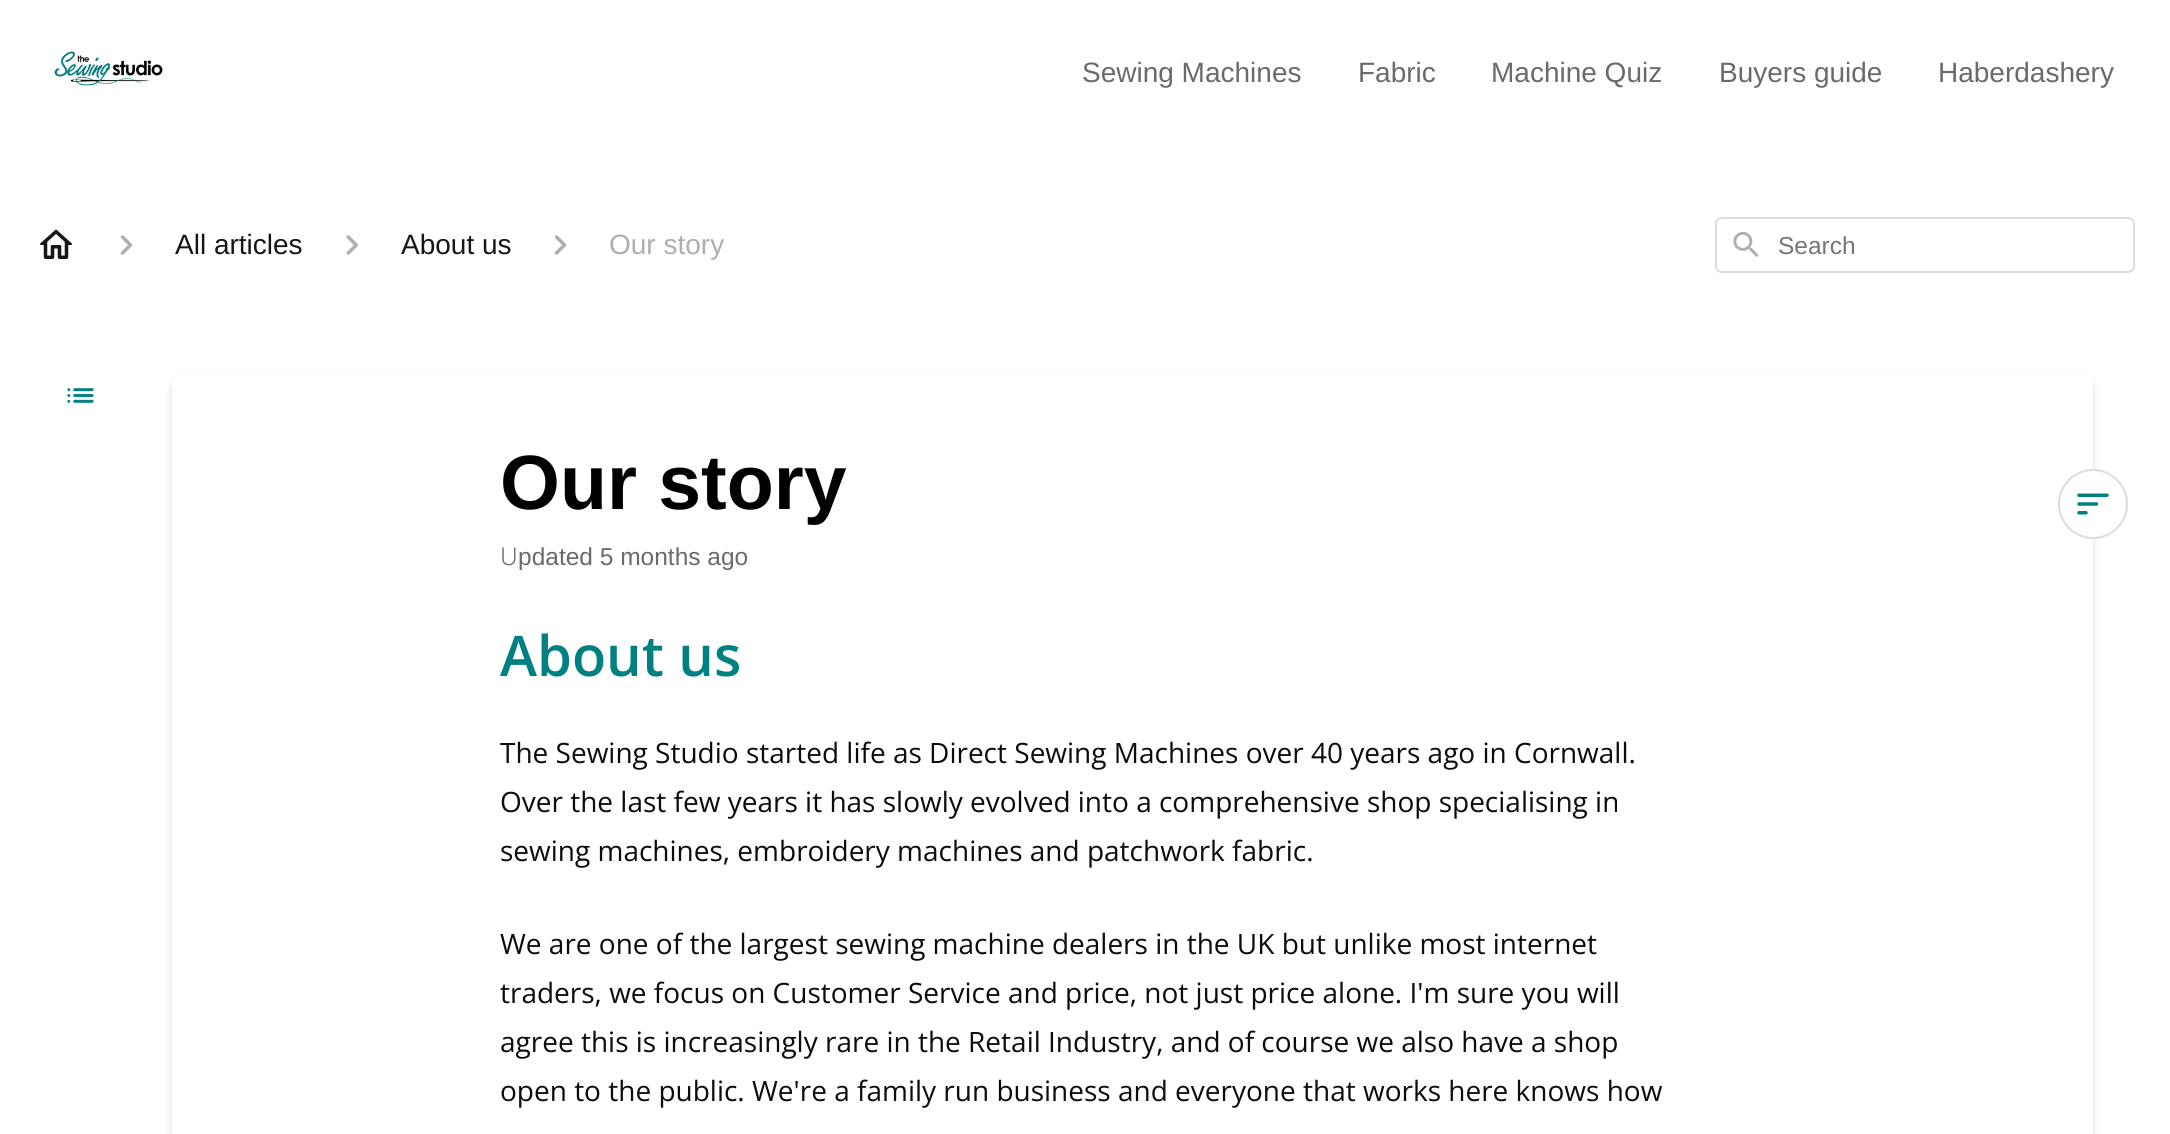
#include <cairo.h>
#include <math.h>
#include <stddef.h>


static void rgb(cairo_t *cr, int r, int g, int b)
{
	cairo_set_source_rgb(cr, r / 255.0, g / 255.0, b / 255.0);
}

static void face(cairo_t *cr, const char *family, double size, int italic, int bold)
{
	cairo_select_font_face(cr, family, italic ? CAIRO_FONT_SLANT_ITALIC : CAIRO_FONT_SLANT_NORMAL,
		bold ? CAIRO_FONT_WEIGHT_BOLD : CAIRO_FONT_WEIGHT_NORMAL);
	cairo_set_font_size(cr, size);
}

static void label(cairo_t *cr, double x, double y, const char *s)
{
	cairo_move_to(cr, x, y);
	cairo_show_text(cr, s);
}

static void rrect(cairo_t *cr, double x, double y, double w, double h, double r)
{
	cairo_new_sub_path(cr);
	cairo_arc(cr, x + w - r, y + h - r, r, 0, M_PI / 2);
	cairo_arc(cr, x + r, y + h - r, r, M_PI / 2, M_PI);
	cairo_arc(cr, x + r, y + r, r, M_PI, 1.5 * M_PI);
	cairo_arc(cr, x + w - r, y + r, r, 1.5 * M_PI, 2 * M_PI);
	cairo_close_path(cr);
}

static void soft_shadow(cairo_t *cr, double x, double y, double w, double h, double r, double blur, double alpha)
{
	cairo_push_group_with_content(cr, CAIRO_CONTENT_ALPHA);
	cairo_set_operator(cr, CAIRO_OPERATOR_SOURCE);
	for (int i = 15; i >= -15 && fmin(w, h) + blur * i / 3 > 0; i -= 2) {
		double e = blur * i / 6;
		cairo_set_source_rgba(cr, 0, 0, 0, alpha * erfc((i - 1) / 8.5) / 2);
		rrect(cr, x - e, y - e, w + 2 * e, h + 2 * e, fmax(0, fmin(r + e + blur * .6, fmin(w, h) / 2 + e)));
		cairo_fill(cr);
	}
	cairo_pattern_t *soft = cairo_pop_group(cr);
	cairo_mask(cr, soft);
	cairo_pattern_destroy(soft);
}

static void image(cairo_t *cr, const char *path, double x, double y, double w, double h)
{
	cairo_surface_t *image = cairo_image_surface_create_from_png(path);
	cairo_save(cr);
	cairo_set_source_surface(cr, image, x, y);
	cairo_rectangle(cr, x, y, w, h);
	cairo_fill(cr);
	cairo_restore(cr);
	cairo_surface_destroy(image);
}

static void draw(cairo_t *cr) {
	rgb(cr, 255, 255, 255);
	cairo_paint(cr);
	image(cr, "image0.png", 54, 51, 109, 35);
	face(cr, "Liberation Sans", 28, 0, 0);
	rgb(cr, 106, 106, 106);
	label(cr, 1082, 82, "Sewing Machines");
	label(cr, 1358, 82, "Fabric");
	label(cr, 1491, 82, "Machine Quiz");
	label(cr, 1719, 82, "Buyers guide");
	label(cr, 1938, 82, "Haberdashery");
	image(cr, "image1.png", 39, 229, 34, 30);
	image(cr, "image2.png", 120, 235, 13, 20);
	rgb(cr, 22, 22, 22);
	label(cr, 175, 254, "All articles");
	image(cr, "image3.png", 346, 235, 12, 20);
	label(cr, 401, 254, "About us");
	image(cr, "image2.png", 554, 235, 13, 20);
	rgb(cr, 175, 175, 175);
	label(cr, 609, 254, "Our story");
	rrect(cr, 1716, 218, 418, 54, 6);
	rgb(cr, 221, 221, 221);
	cairo_stroke(cr);
	image(cr, "image4.png", 1733, 231, 26, 26);
	face(cr, "Liberation Sans", 24.5, 0, 0);
	rgb(cr, 117, 117, 117);
	label(cr, 1778, 254, "Search");
	image(cr, "image5.png", 67, 388, 27, 15);
	rgb(cr, 22, 22, 22);
	soft_shadow(cr, 172, 375, 1921, 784, 14, 3.5, 0.16);
	rgb(cr, 255, 255, 255);
	rrect(cr, 172, 371, 1921, 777, 14);
	cairo_fill(cr);
	face(cr, "Liberation Sans", 77, 0, 1);
	rgb(cr, 0, 0, 0);
	label(cr, 500, 509, "Our story");
	face(cr, "Noto Sans Light", 24.5, 0, 0);
	rgb(cr, 106, 106, 106);
	label(cr, 500, 565, "U");
	face(cr, "Liberation Sans", 24.5, 0, 0);
	label(cr, 518, 565, "pdated 5 months ago");
	face(cr, "Open Sans SemiBold", 56, 0, 0);
	rgb(cr, 0, 128, 128);
	label(cr, 500, 676, "About us");
	face(cr, "Open Sans", 28, 0, 0);
	rgb(cr, 12, 12, 12);
	label(cr, 500, 763, "The Sewing Studio started life as Direct Sewing Machines over 40 years ago in Cornwall.");
	label(cr, 500, 812, "Over the last few years it has slowly evolved into a comprehensive shop specialising in");
	label(cr, 500, 861, "sewing machines, embroidery machines and patchwork fabric.");
	label(cr, 500, 954, "We are one of the largest sewing machine dealers in the UK but unlike most internet");
	label(cr, 500, 1003, "traders, we focus on Customer Service and price, not just price alone. I'm sure you will");
	label(cr, 500, 1052, "agree this is increasingly rare in the Retail Industry, and of course we also have a shop");
	label(cr, 500, 1101, "open to the public. We're a family run business and everyone that works here knows how");
	rgb(cr, 255, 255, 255);
	cairo_new_path(cr);
	cairo_arc(cr, 2093, 504, 34, 0, 2 * M_PI);
	cairo_fill_preserve(cr);
	rgb(cr, 221, 221, 221);
	cairo_stroke(cr);
	image(cr, "image6.png", 2077, 493, 32, 22);
}

int main(void) {
	cairo_surface_t *surface = cairo_image_surface_create(CAIRO_FORMAT_RGB24, 2170, 1134);
	cairo_t *cr = cairo_create(surface);
	cairo_font_options_t *options = cairo_font_options_create();
	cairo_font_options_set_hint_metrics(options, CAIRO_HINT_METRICS_OFF);
	cairo_font_options_set_hint_style(options, CAIRO_HINT_STYLE_NONE);
	cairo_set_font_options(cr, options);
	cairo_set_miter_limit(cr, 4);
	draw(cr);
	cairo_surface_write_to_png(surface, "render.png");
	cairo_font_options_destroy(options);
	cairo_destroy(cr);
	cairo_surface_destroy(surface);
	return 0;
}
